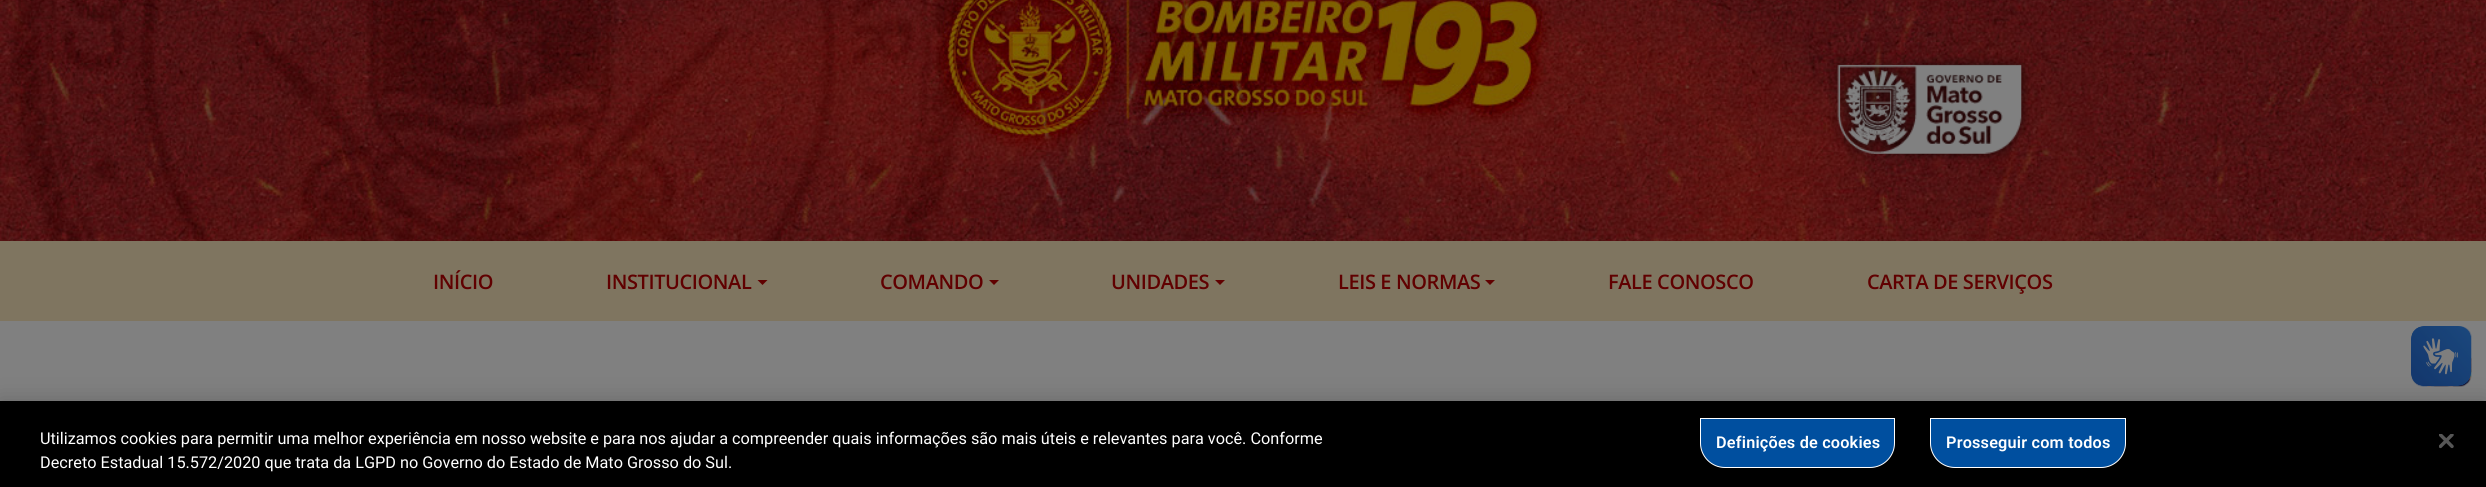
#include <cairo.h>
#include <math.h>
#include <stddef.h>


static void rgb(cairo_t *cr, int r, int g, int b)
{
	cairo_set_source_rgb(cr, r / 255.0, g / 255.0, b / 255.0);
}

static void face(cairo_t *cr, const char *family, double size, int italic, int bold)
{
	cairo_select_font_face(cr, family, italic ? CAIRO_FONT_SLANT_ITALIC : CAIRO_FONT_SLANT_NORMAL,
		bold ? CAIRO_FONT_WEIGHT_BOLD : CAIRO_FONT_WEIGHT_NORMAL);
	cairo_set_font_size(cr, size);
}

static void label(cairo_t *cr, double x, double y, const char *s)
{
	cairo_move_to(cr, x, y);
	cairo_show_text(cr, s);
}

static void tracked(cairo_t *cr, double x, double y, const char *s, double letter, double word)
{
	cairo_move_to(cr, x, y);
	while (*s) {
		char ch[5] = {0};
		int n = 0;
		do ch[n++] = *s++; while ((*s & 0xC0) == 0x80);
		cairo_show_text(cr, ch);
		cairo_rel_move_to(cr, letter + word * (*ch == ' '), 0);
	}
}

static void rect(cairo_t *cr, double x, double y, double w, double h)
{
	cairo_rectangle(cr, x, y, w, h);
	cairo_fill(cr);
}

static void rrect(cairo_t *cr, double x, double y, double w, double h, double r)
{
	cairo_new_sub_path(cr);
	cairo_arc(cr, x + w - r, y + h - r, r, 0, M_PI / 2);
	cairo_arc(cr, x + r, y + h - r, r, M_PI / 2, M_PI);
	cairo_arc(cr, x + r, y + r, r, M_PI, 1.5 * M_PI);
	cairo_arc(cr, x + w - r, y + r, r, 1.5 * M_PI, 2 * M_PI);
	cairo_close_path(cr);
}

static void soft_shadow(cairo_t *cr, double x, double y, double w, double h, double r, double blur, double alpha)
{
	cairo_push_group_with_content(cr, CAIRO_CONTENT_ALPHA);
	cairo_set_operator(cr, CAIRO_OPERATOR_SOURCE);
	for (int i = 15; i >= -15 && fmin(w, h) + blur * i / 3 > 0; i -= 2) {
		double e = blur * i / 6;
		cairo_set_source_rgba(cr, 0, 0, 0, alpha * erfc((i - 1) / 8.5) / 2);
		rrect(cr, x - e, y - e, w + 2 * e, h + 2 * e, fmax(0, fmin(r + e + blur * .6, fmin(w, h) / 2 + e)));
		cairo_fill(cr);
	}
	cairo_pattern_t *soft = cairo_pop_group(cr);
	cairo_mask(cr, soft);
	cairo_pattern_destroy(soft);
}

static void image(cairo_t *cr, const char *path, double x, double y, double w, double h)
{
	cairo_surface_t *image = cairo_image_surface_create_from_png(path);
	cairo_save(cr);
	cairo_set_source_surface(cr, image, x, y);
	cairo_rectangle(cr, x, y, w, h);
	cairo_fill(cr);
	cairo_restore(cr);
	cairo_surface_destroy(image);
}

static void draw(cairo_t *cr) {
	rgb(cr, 128, 128, 128);
	cairo_paint(cr);
	image(cr, "image0.png", 0, 0, 2486, 241);
	image(cr, "image1.png", 1829, 56, 201, 107);
	rgb(cr, 127, 117, 96);
	rect(cr, 0, 241, 2486, 80);
	face(cr, "Open Sans SemiBold", 20, 0, 0);
	rgb(cr, 96, 0, 0);
	tracked(cr, 433, 289, "INÍCIO", -0.4, 0);
	tracked(cr, 606, 289, "INSTITUCIONAL", -0.4, 0);
	cairo_new_path(cr);
	cairo_move_to(cr, 757.5, 280);
	cairo_line_to(cr, 767.5, 280);
	cairo_line_to(cr, 762.5, 285);
	cairo_close_path(cr);
	cairo_fill(cr);
	tracked(cr, 880, 289, "COMANDO", -0.4, 0);
	cairo_new_path(cr);
	cairo_move_to(cr, 989, 280);
	cairo_line_to(cr, 999, 280);
	cairo_line_to(cr, 994, 285);
	cairo_close_path(cr);
	cairo_fill(cr);
	tracked(cr, 1111, 289, "UNIDADES", -0.4, 0);
	cairo_new_path(cr);
	cairo_move_to(cr, 1215, 280);
	cairo_line_to(cr, 1225, 280);
	cairo_line_to(cr, 1220, 285);
	cairo_close_path(cr);
	cairo_fill(cr);
	tracked(cr, 1338, 289, "LEIS E NORMAS", -0.4, 0);
	cairo_new_path(cr);
	cairo_move_to(cr, 1485, 280);
	cairo_line_to(cr, 1495, 280);
	cairo_line_to(cr, 1490, 285);
	cairo_close_path(cr);
	cairo_fill(cr);
	tracked(cr, 1608, 289, "FALE CONOSCO", -0.4, 0);
	tracked(cr, 1867, 289, "CARTA DE SERVIÇOS", -0.4, 0);
	image(cr, "image2.png", 2411, 326, 61, 61);
	image(cr, "image3.png", 2411, 326, 60, 60);
	rgb(cr, 0, 0, 0);
	soft_shadow(cr, 0, 401, 2486, 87, 0, 11, 0.2);
	rgb(cr, 0, 0, 0);
	rect(cr, 0, 401, 2486, 86);
	face(cr, "Roboto", 16.25, 0, 0);
	rgb(cr, 255, 255, 255);
	label(cr, 40, 444, "Utilizamos cookies para permitir uma melhor experiência em nosso website e para nos ajudar a compreender quais informações são mais úteis e relevantes para você. Conforme");
	label(cr, 40, 468, "Decreto Estadual 15.572/2020 que trata da LGPD no Governo do Estado de Mato Grosso do Sul.");
	rgb(cr, 0, 79, 159);
	cairo_new_path(cr);
	cairo_move_to(cr, 1700.5, 418.5);
	cairo_line_to(cr, 1894.5, 418.5);
	cairo_line_to(cr, 1894.5, 443);
	cairo_curve_to(cr, 1894.5, 456.5, 1883.5, 467.5, 1870, 467.5);
	cairo_line_to(cr, 1725, 467.5);
	cairo_curve_to(cr, 1711.5, 467.5, 1700.5, 456.5, 1700.5, 443);
	cairo_close_path(cr);
	cairo_fill_preserve(cr);
	rgb(cr, 255, 255, 255);
	cairo_set_line_width(cr, 1);
	cairo_stroke(cr);
	face(cr, "Roboto SemiBold", 16.25, 0, 0);
	tracked(cr, 1716, 448, "Definições de cookies", 0.2, 0);
	rgb(cr, 0, 79, 159);
	cairo_new_path(cr);
	cairo_move_to(cr, 1930.5, 418.5);
	cairo_line_to(cr, 2125.5, 418.5);
	cairo_line_to(cr, 2125.5, 443);
	cairo_curve_to(cr, 2125.5, 456.5, 2114.5, 467.5, 2101, 467.5);
	cairo_line_to(cr, 1955, 467.5);
	cairo_curve_to(cr, 1941.5, 467.5, 1930.5, 456.5, 1930.5, 443);
	cairo_close_path(cr);
	cairo_fill_preserve(cr);
	rgb(cr, 255, 255, 255);
	cairo_stroke(cr);
	tracked(cr, 1946, 448, "Prosseguir com todos", 0.2, 0);
	image(cr, "image4.png", 2439, 434, 15, 15);
}

int main(void) {
	cairo_surface_t *surface = cairo_image_surface_create(CAIRO_FORMAT_RGB24, 2486, 487);
	cairo_t *cr = cairo_create(surface);
	cairo_font_options_t *options = cairo_font_options_create();
	cairo_font_options_set_hint_metrics(options, CAIRO_HINT_METRICS_OFF);
	cairo_font_options_set_hint_style(options, CAIRO_HINT_STYLE_NONE);
	cairo_set_font_options(cr, options);
	cairo_set_miter_limit(cr, 4);
	draw(cr);
	cairo_surface_write_to_png(surface, "render.png");
	cairo_font_options_destroy(options);
	cairo_destroy(cr);
	cairo_surface_destroy(surface);
	return 0;
}
